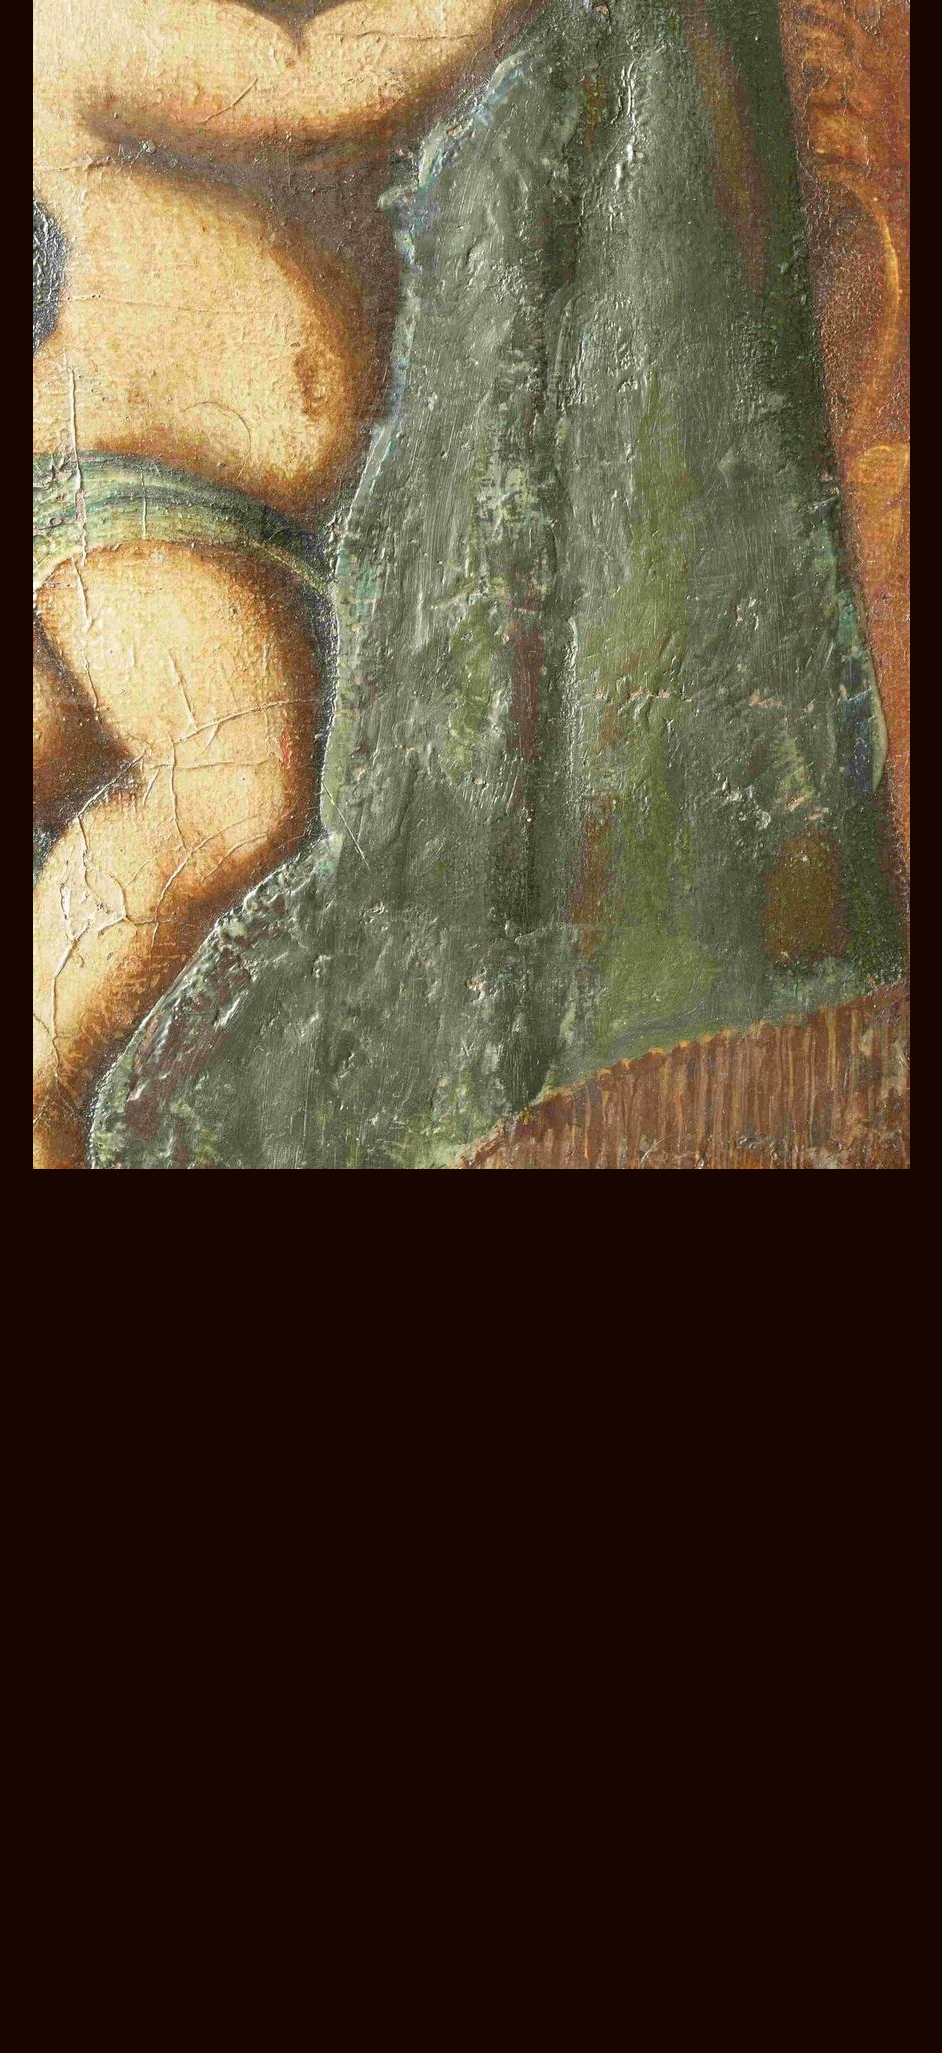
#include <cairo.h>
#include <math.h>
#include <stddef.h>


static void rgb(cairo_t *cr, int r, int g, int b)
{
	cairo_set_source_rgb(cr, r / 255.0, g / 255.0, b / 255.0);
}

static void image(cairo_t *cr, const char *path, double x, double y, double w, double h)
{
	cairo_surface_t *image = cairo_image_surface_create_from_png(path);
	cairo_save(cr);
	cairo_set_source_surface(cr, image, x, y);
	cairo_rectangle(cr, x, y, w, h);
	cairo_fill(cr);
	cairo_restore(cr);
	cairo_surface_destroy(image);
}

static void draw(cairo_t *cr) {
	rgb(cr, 24, 4, 0);
	cairo_paint(cr);
	image(cr, "image0.png", 33, 0, 877, 1169);
}

int main(void) {
	cairo_surface_t *surface = cairo_image_surface_create(CAIRO_FORMAT_RGB24, 942, 2053);
	cairo_t *cr = cairo_create(surface);
	cairo_font_options_t *options = cairo_font_options_create();
	cairo_font_options_set_hint_metrics(options, CAIRO_HINT_METRICS_OFF);
	cairo_font_options_set_hint_style(options, CAIRO_HINT_STYLE_NONE);
	cairo_set_font_options(cr, options);
	cairo_set_miter_limit(cr, 4);
	draw(cr);
	cairo_surface_write_to_png(surface, "render.png");
	cairo_font_options_destroy(options);
	cairo_destroy(cr);
	cairo_surface_destroy(surface);
	return 0;
}
